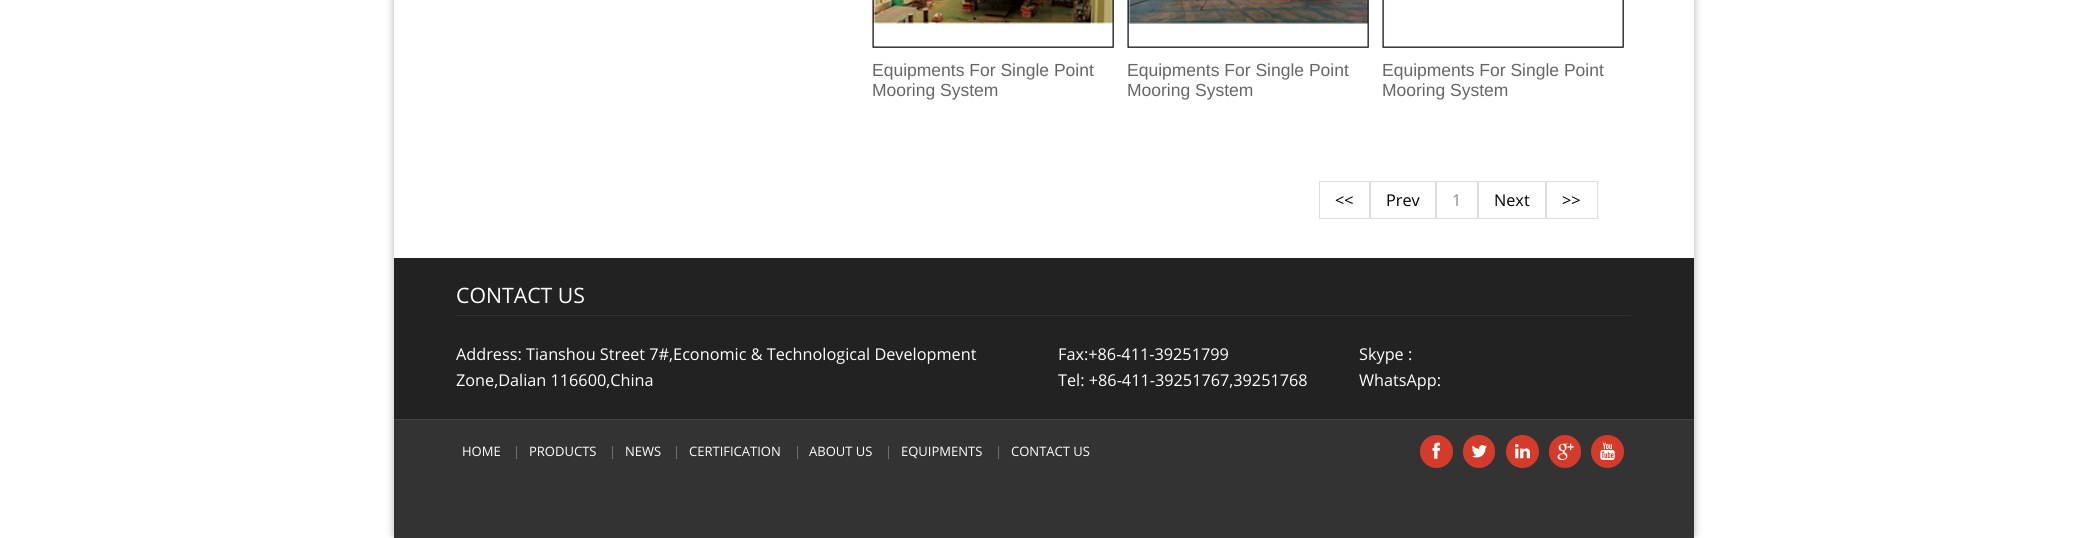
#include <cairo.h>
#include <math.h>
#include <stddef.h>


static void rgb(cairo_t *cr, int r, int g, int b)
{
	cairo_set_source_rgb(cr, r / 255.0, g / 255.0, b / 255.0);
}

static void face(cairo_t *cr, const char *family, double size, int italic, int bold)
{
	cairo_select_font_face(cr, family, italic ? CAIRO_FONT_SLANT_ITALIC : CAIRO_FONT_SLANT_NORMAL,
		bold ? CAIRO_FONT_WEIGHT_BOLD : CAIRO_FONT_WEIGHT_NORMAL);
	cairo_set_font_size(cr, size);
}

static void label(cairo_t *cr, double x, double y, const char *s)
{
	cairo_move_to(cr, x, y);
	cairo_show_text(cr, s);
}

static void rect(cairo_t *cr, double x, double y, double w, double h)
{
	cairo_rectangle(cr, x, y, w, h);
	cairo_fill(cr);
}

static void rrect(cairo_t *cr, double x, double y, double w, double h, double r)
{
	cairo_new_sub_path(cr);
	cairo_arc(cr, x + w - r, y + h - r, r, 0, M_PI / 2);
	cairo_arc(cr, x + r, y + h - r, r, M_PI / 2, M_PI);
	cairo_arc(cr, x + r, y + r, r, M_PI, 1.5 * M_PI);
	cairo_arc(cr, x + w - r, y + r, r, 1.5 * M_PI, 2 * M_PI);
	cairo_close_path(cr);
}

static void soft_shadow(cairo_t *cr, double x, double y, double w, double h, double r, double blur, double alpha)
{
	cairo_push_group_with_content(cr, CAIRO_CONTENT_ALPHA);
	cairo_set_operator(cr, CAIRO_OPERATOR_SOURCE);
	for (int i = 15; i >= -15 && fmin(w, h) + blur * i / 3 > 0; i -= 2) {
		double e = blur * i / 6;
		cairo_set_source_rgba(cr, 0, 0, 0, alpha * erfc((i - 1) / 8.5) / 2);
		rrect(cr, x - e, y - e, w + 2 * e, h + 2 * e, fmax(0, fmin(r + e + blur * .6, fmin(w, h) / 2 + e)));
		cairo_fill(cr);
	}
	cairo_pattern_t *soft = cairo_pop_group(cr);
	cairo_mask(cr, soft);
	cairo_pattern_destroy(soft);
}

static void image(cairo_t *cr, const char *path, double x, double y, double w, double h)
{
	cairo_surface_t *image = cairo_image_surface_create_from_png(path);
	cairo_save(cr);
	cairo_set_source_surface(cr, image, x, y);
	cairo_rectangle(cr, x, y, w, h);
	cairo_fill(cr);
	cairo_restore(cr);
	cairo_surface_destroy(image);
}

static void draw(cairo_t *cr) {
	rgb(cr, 255, 255, 255);
	cairo_paint(cr);
	rgb(cr, 0, 0, 0);
	soft_shadow(cr, 394, -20, 1300, 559, 6, 4.5, 0.3);
	rgb(cr, 255, 255, 255);
	rect(cr, 394, 0, 1300, 258);
	image(cr, "image0.png", 872, 0, 242, 48);
	face(cr, "Liberation Sans", 17.5, 0, 0);
	rgb(cr, 102, 102, 102);
	label(cr, 872, 76, "Equipments For Single Point");
	label(cr, 872, 96, "Mooring System");
	image(cr, "image1.png", 1127, 0, 242, 48);
	label(cr, 1127, 76, "Equipments For Single Point");
	label(cr, 1127, 96, "Mooring System");
	image(cr, "image2.png", 1382, 0, 242, 48);
	label(cr, 1382, 76, "Equipments For Single Point");
	label(cr, 1382, 96, "Mooring System");
	cairo_rectangle(cr, 1319.5, 181.5, 50, 37);
	rgb(cr, 221, 221, 221);
	cairo_set_line_width(cr, 1);
	cairo_stroke(cr);
	face(cr, "Open Sans", 16.25, 0, 0);
	rgb(cr, 0, 0, 0);
	label(cr, 1335, 206, "<<");
	cairo_rectangle(cr, 1370.5, 181.5, 65, 37);
	rgb(cr, 221, 221, 221);
	cairo_stroke(cr);
	rgb(cr, 0, 0, 0);
	label(cr, 1386, 206, "Prev");
	cairo_rectangle(cr, 1436.5, 181.5, 41, 37);
	rgb(cr, 221, 221, 221);
	cairo_stroke(cr);
	rgb(cr, 136, 136, 136);
	label(cr, 1452, 206, "1");
	cairo_rectangle(cr, 1478.5, 181.5, 67, 37);
	rgb(cr, 221, 221, 221);
	cairo_stroke(cr);
	rgb(cr, 0, 0, 0);
	label(cr, 1494, 206, "Next");
	cairo_rectangle(cr, 1546.5, 181.5, 51, 37);
	rgb(cr, 221, 221, 221);
	cairo_stroke(cr);
	rgb(cr, 0, 0, 0);
	label(cr, 1562, 206, ">>");
	rgb(cr, 34, 34, 34);
	rect(cr, 394, 258, 1300, 161);
	face(cr, "Open Sans", 21.25, 0, 0);
	rgb(cr, 255, 255, 255);
	label(cr, 456, 303, "CONTACT US");
	rgb(cr, 51, 51, 51);
	rect(cr, 456, 315, 1175, 1);
	face(cr, "Open Sans", 16.25, 0, 0);
	rgb(cr, 255, 255, 255);
	label(cr, 456, 360, "Address: Tianshou Street 7#,Economic & Technological Development");
	label(cr, 456, 386, "Zone,Dalian 116600,China");
	label(cr, 1058, 360, "Fax:+86-411-39251799");
	label(cr, 1058, 386, "Tel: +86-411-39251767,39251768");
	label(cr, 1359, 360, "Skype :");
	label(cr, 1359, 386, "WhatsApp:");
	rgb(cr, 51, 51, 51);
	rect(cr, 394, 420, 1300, 118);
	rgb(cr, 68, 68, 68);
	rect(cr, 394, 419, 1300, 1);
	face(cr, "Open Sans", 13, 0, 0);
	rgb(cr, 255, 255, 255);
	label(cr, 462, 456, "HOME");
	rgb(cr, 119, 119, 119);
	label(cr, 513, 456, "|");
	rgb(cr, 255, 255, 255);
	label(cr, 529, 456, "PRODUCTS");
	rgb(cr, 119, 119, 119);
	label(cr, 609, 456, "|");
	rgb(cr, 255, 255, 255);
	label(cr, 625, 456, "NEWS");
	rgb(cr, 119, 119, 119);
	label(cr, 673, 456, "|");
	rgb(cr, 255, 255, 255);
	label(cr, 689, 456, "CERTIFICATION");
	rgb(cr, 119, 119, 119);
	label(cr, 794, 456, "|");
	rgb(cr, 255, 255, 255);
	label(cr, 809, 456, "ABOUT US");
	rgb(cr, 119, 119, 119);
	label(cr, 885, 456, "|");
	rgb(cr, 255, 255, 255);
	label(cr, 901, 456, "EQUIPMENTS");
	rgb(cr, 119, 119, 119);
	label(cr, 995, 456, "|");
	rgb(cr, 255, 255, 255);
	label(cr, 1011, 456, "CONTACT US");
	rgb(cr, 213, 59, 43);
	cairo_new_path(cr);
	cairo_arc(cr, 1436.5, 451.5, 16.5, 0, 2 * M_PI);
	cairo_fill(cr);
	image(cr, "image3.png", 1432, 442, 8, 17);
	rrect(cr, 1463, 435, 32, 33, 16);
	cairo_fill(cr);
	image(cr, "image4.png", 1471, 445, 16, 13);
	cairo_arc(cr, 1522.5, 451.5, 16.5, 0, 2 * M_PI);
	cairo_fill(cr);
	image(cr, "image5.png", 1515, 444, 15, 15);
	rrect(cr, 1549, 435, 32, 33, 16);
	cairo_fill(cr);
	image(cr, "image6.png", 1557, 443, 17, 17);
	cairo_arc(cr, 1607.5, 451.5, 16.5, 0, 2 * M_PI);
	cairo_fill(cr);
	image(cr, "image7.png", 1600, 442, 15, 18);
}

int main(void) {
	cairo_surface_t *surface = cairo_image_surface_create(CAIRO_FORMAT_RGB24, 2086, 538);
	cairo_t *cr = cairo_create(surface);
	cairo_font_options_t *options = cairo_font_options_create();
	cairo_font_options_set_hint_metrics(options, CAIRO_HINT_METRICS_OFF);
	cairo_font_options_set_hint_style(options, CAIRO_HINT_STYLE_NONE);
	cairo_set_font_options(cr, options);
	cairo_set_miter_limit(cr, 4);
	draw(cr);
	cairo_surface_write_to_png(surface, "render.png");
	cairo_font_options_destroy(options);
	cairo_destroy(cr);
	cairo_surface_destroy(surface);
	return 0;
}
